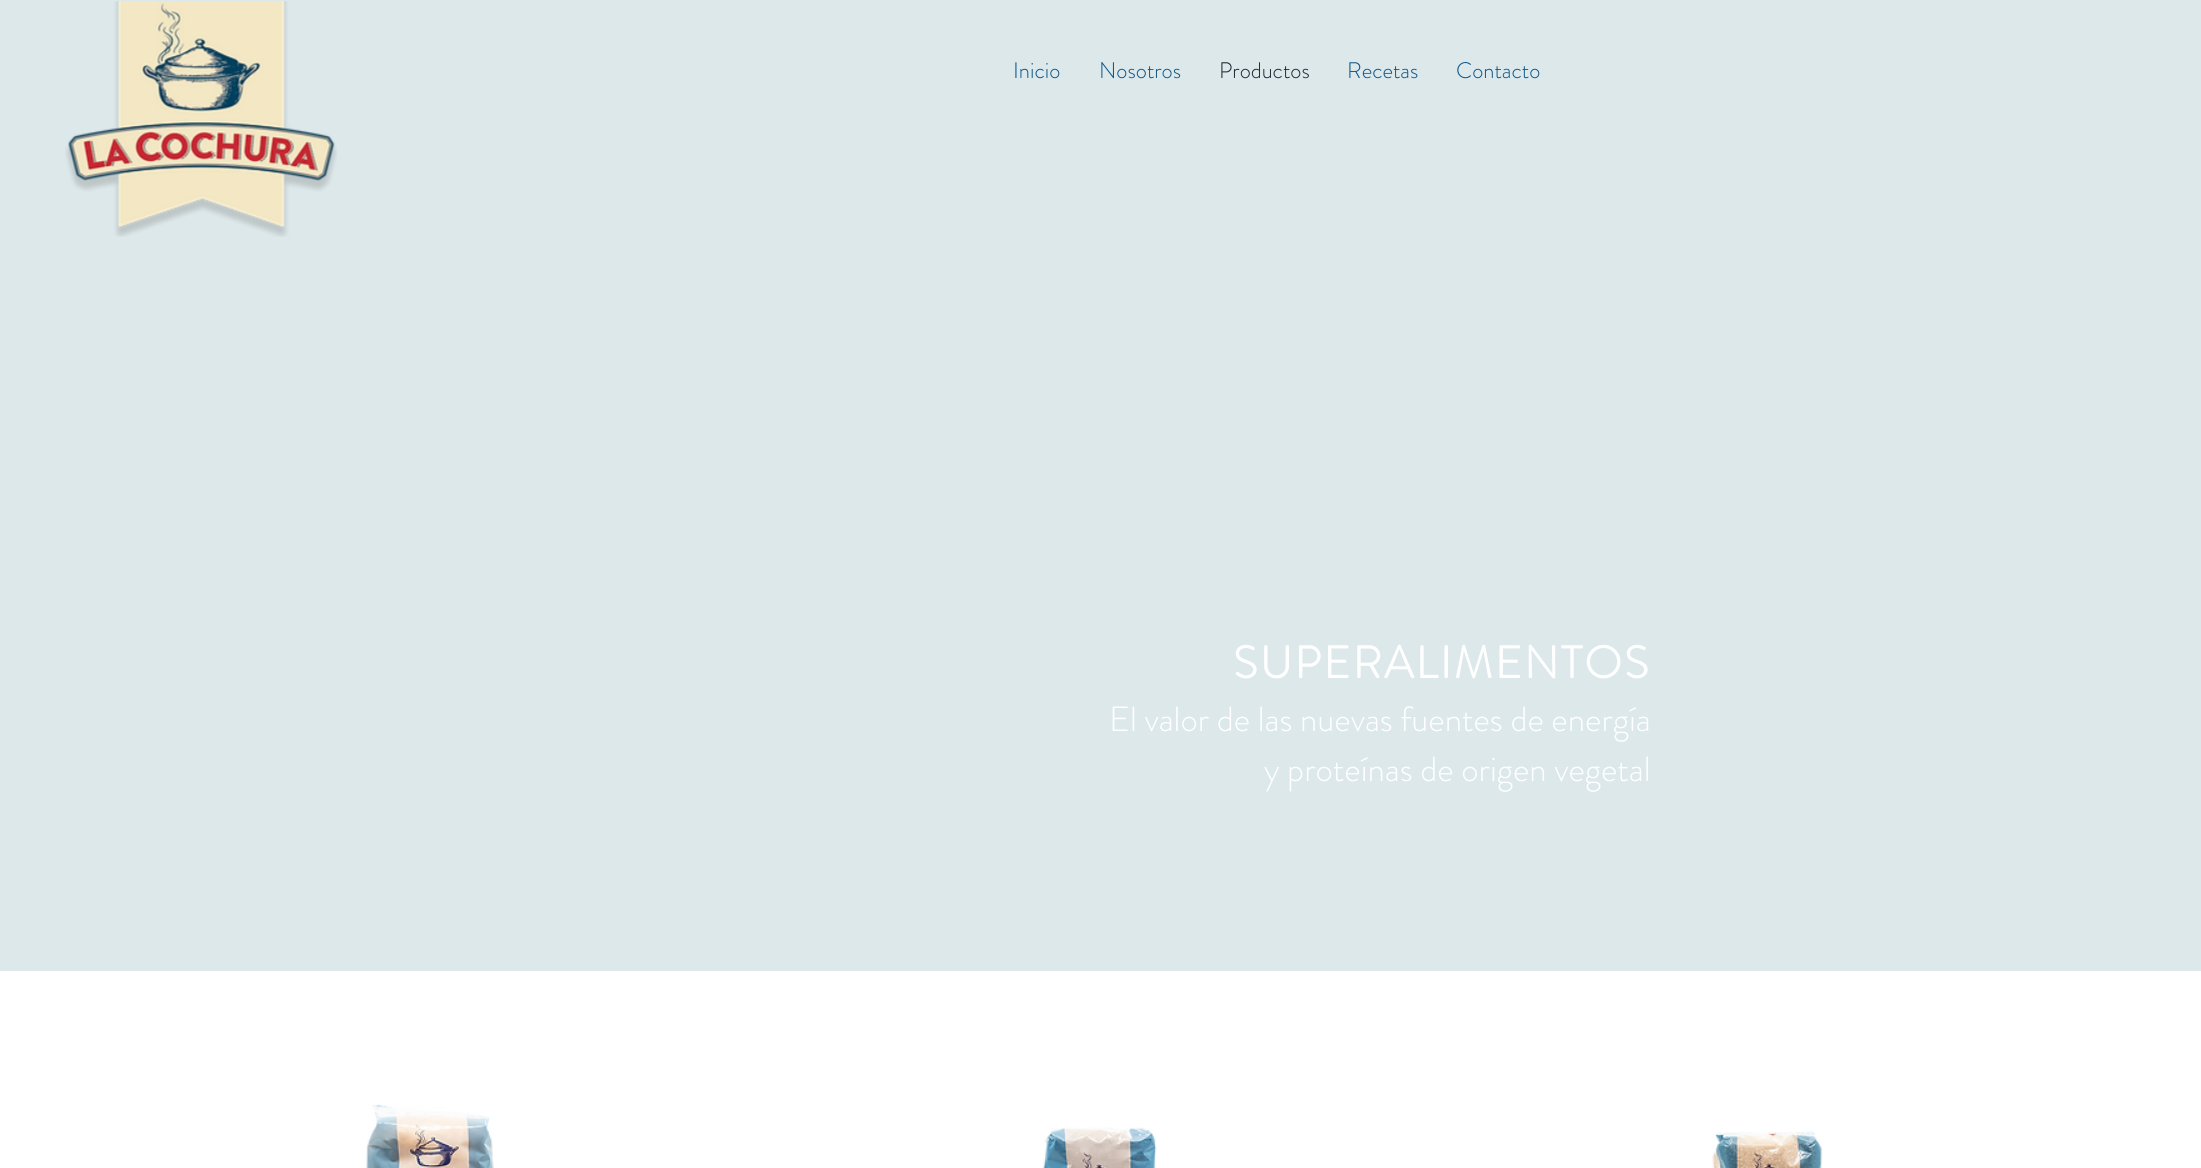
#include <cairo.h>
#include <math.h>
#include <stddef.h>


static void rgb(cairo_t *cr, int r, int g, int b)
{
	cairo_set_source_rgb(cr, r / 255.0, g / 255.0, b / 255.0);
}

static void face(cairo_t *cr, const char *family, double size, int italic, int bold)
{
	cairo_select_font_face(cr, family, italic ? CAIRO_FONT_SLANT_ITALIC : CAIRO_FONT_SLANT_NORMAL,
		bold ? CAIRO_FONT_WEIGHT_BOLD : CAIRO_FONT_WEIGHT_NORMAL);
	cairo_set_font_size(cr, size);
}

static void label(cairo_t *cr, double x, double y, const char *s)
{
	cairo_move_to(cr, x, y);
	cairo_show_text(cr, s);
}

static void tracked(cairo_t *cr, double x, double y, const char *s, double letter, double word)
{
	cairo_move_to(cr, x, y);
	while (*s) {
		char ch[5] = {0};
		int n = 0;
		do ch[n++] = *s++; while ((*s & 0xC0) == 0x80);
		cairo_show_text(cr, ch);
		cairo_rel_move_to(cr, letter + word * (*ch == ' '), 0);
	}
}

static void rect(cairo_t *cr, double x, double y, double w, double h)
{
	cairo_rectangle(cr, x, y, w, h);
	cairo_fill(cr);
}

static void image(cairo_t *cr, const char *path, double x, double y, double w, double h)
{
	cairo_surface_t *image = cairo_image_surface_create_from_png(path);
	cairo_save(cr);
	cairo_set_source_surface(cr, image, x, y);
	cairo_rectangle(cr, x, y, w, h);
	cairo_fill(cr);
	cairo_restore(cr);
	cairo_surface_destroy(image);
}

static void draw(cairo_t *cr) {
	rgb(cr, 255, 255, 255);
	cairo_paint(cr);
	rgb(cr, 221, 232, 235);
	rect(cr, 0, 0, 2201, 971);
	image(cr, "image0.png", 65, 1, 272, 236);
	face(cr, "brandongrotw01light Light", 22.5, 0, 0);
	rgb(cr, 10, 85, 135);
	label(cr, 1013, 78, "Inicio");
	label(cr, 1099, 78, "Nosotros");
	rgb(cr, 31, 38, 52);
	label(cr, 1219, 78, "Productos");
	rgb(cr, 10, 85, 135);
	label(cr, 1347, 78, "Recetas");
	label(cr, 1456, 78, "Contacto");
	face(cr, "brandongrotw01light", 45, 0, 1);
	rgb(cr, 255, 255, 255);
	tracked(cr, 1233, 678, "SUPERALIMENTOS", 2.25, 0);
	face(cr, "brandongrotw01light Light", 35, 0, 0);
	label(cr, 1109, 731, "El valor de las nuevas fuentes de energía");
	label(cr, 1264, 781, "y proteínas de origen vegetal");
	image(cr, "image1.png", 366, 1104, 128, 64);
	image(cr, "image2.png", 1043, 1127, 114, 41);
	image(cr, "image3.png", 1712, 1131, 111, 37);
}

int main(void) {
	cairo_surface_t *surface = cairo_image_surface_create(CAIRO_FORMAT_RGB24, 2201, 1168);
	cairo_t *cr = cairo_create(surface);
	cairo_font_options_t *options = cairo_font_options_create();
	cairo_font_options_set_hint_metrics(options, CAIRO_HINT_METRICS_OFF);
	cairo_font_options_set_hint_style(options, CAIRO_HINT_STYLE_NONE);
	cairo_set_font_options(cr, options);
	cairo_set_miter_limit(cr, 4);
	draw(cr);
	cairo_surface_write_to_png(surface, "render.png");
	cairo_font_options_destroy(options);
	cairo_destroy(cr);
	cairo_surface_destroy(surface);
	return 0;
}
